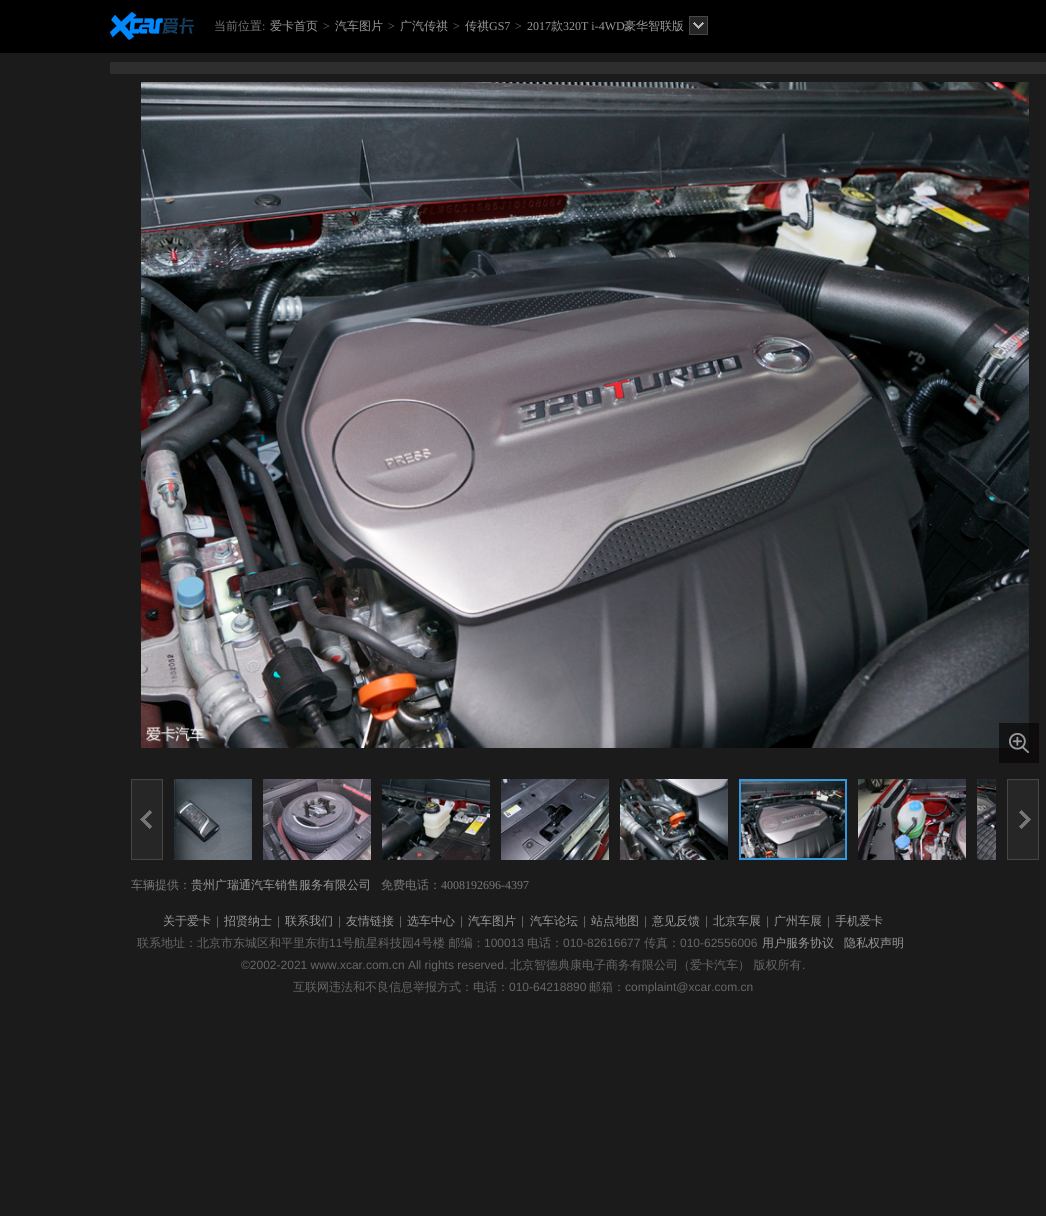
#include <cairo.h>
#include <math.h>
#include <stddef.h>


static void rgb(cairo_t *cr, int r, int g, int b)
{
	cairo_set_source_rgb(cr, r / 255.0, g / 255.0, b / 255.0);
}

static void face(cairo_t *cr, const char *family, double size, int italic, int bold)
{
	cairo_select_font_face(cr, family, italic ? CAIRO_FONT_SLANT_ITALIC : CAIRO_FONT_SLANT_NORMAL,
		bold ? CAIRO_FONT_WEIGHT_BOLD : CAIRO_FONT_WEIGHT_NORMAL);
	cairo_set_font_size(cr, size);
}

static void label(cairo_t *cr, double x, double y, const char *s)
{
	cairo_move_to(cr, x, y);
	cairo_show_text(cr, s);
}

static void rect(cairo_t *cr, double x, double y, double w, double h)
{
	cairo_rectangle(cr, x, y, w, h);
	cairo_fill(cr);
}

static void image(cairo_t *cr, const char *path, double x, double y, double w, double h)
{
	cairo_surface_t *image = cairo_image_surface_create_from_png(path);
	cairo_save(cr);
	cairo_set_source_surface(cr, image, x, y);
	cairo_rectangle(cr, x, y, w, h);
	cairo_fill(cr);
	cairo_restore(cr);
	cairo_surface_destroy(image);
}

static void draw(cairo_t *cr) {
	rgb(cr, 27, 27, 27);
	cairo_paint(cr);
	rgb(cr, 0, 0, 0);
	rect(cr, 0, 0, 1046, 53);
	image(cr, "image0.png", 110, 12, 84, 28);
	face(cr, "WenQuanYi Zen Hei Medium", 12, 0, 0);
	rgb(cr, 119, 119, 119);
	label(cr, 214, 30, "当前位置");
	face(cr, "Liberation Serif", 12, 0, 0);
	label(cr, 262, 30, ":");
	face(cr, "WenQuanYi Zen Hei Medium", 12, 0, 0);
	rgb(cr, 153, 153, 153);
	label(cr, 270, 30, "爱卡首页");
	face(cr, "Liberation Serif", 12, 0, 0);
	rgb(cr, 119, 119, 119);
	label(cr, 323, 30, ">");
	face(cr, "WenQuanYi Zen Hei Medium", 12, 0, 0);
	rgb(cr, 153, 153, 153);
	label(cr, 335, 30, "汽车图片");
	face(cr, "Liberation Serif", 12, 0, 0);
	rgb(cr, 119, 119, 119);
	label(cr, 388, 30, ">");
	face(cr, "WenQuanYi Zen Hei Medium", 12, 0, 0);
	rgb(cr, 153, 153, 153);
	label(cr, 400, 30, "广汽传祺");
	face(cr, "Liberation Serif", 12, 0, 0);
	rgb(cr, 119, 119, 119);
	label(cr, 453, 30, ">");
	face(cr, "WenQuanYi Zen Hei Medium", 12, 0, 0);
	rgb(cr, 153, 153, 153);
	label(cr, 465, 30, "传祺");
	face(cr, "Liberation Serif", 12, 0, 0);
	label(cr, 489, 30, "GS7");
	rgb(cr, 119, 119, 119);
	label(cr, 515, 30, ">");
	rgb(cr, 153, 153, 153);
	label(cr, 527, 30, "2017");
	face(cr, "WenQuanYi Zen Hei Medium", 12, 0, 0);
	label(cr, 551, 30, "款");
	face(cr, "Liberation Serif", 12, 0, 0);
	label(cr, 563, 30, "320T i-4WD");
	face(cr, "WenQuanYi Zen Hei Medium", 12, 0, 0);
	label(cr, 624, 30, "豪华智联版");
	image(cr, "image1.png", 689, 16, 19, 19);
	rgb(cr, 46, 46, 46);
	rect(cr, 110, 62, 936, 12);
	image(cr, "image2.png", 141, 82, 888, 666);
	image(cr, "image3.png", 999, 723, 40, 40);
	image(cr, "image4.png", 131, 779, 32, 81);
	image(cr, "image5.png", 174, 779, 78, 81);
	image(cr, "image6.png", 263, 779, 108, 81);
	image(cr, "image7.png", 382, 779, 108, 81);
	image(cr, "image8.png", 501, 779, 108, 81);
	image(cr, "image9.png", 620, 779, 108, 81);
	image(cr, "image10.png", 741, 781, 104, 77);
	cairo_rectangle(cr, 740, 780, 106, 79);
	rgb(cr, 52, 152, 219);
	cairo_stroke(cr);
	image(cr, "image11.png", 858, 779, 108, 81);
	image(cr, "image12.png", 977, 779, 19, 81);
	image(cr, "image13.png", 1007, 779, 32, 81);
	rgb(cr, 119, 119, 119);
	label(cr, 131, 889, "车辆提供：");
	rgb(cr, 153, 153, 153);
	label(cr, 191, 889, "贵州广瑞通汽车销售服务有限公司");
	rgb(cr, 119, 119, 119);
	label(cr, 381, 889, "免费电话：");
	face(cr, "Liberation Serif", 12, 0, 0);
	label(cr, 441, 889, "4008192696-4397");
	face(cr, "WenQuanYi Zen Hei Medium", 12, 0, 0);
	rgb(cr, 153, 153, 153);
	label(cr, 163, 925, "关于爱卡");
	face(cr, "Liberation Sans", 12, 0, 0);
	rgb(cr, 102, 102, 102);
	label(cr, 216, 925, "|");
	face(cr, "WenQuanYi Zen Hei Medium", 12, 0, 0);
	rgb(cr, 153, 153, 153);
	label(cr, 224, 925, "招贤纳士");
	face(cr, "Liberation Sans", 12, 0, 0);
	rgb(cr, 102, 102, 102);
	label(cr, 277, 925, "|");
	face(cr, "WenQuanYi Zen Hei Medium", 12, 0, 0);
	rgb(cr, 153, 153, 153);
	label(cr, 285, 925, "联系我们");
	face(cr, "Liberation Sans", 12, 0, 0);
	rgb(cr, 102, 102, 102);
	label(cr, 338, 925, "|");
	face(cr, "WenQuanYi Zen Hei Medium", 12, 0, 0);
	rgb(cr, 153, 153, 153);
	label(cr, 346, 925, "友情链接");
	face(cr, "Liberation Sans", 12, 0, 0);
	rgb(cr, 102, 102, 102);
	label(cr, 399, 925, "|");
	face(cr, "WenQuanYi Zen Hei Medium", 12, 0, 0);
	rgb(cr, 153, 153, 153);
	label(cr, 407, 925, "选车中心");
	face(cr, "Liberation Sans", 12, 0, 0);
	rgb(cr, 102, 102, 102);
	label(cr, 460, 925, "|");
	face(cr, "WenQuanYi Zen Hei Medium", 12, 0, 0);
	rgb(cr, 153, 153, 153);
	label(cr, 468, 925, "汽车图片");
	face(cr, "Liberation Sans", 12, 0, 0);
	rgb(cr, 102, 102, 102);
	label(cr, 521, 925, "|");
	face(cr, "WenQuanYi Zen Hei Medium", 12, 0, 0);
	rgb(cr, 153, 153, 153);
	label(cr, 530, 925, "汽车论坛");
	face(cr, "Liberation Sans", 12, 0, 0);
	rgb(cr, 102, 102, 102);
	label(cr, 583, 925, "|");
	face(cr, "WenQuanYi Zen Hei Medium", 12, 0, 0);
	rgb(cr, 153, 153, 153);
	label(cr, 591, 925, "站点地图");
	face(cr, "Liberation Sans", 12, 0, 0);
	rgb(cr, 102, 102, 102);
	label(cr, 644, 925, "|");
	face(cr, "WenQuanYi Zen Hei Medium", 12, 0, 0);
	rgb(cr, 153, 153, 153);
	label(cr, 652, 925, "意见反馈");
	face(cr, "Liberation Sans", 12, 0, 0);
	rgb(cr, 102, 102, 102);
	label(cr, 705, 925, "|");
	face(cr, "WenQuanYi Zen Hei Medium", 12, 0, 0);
	rgb(cr, 153, 153, 153);
	label(cr, 713, 925, "北京车展");
	face(cr, "Liberation Sans", 12, 0, 0);
	rgb(cr, 102, 102, 102);
	label(cr, 766, 925, "|");
	face(cr, "WenQuanYi Zen Hei Medium", 12, 0, 0);
	rgb(cr, 153, 153, 153);
	label(cr, 774, 925, "广州车展");
	face(cr, "Liberation Sans", 12, 0, 0);
	rgb(cr, 102, 102, 102);
	label(cr, 827, 925, "|");
	face(cr, "WenQuanYi Zen Hei Medium", 12, 0, 0);
	rgb(cr, 153, 153, 153);
	label(cr, 835, 925, "手机爱卡");
	rgb(cr, 102, 102, 102);
	label(cr, 137, 947, "联系地址：北京市东城区和平里东街");
	face(cr, "Liberation Sans", 12, 0, 0);
	label(cr, 329, 947, "11");
	face(cr, "WenQuanYi Zen Hei Medium", 12, 0, 0);
	label(cr, 342, 947, "号航星科技园");
	face(cr, "Liberation Sans", 12, 0, 0);
	label(cr, 414, 947, "4");
	face(cr, "WenQuanYi Zen Hei Medium", 12, 0, 0);
	label(cr, 421, 947, "号楼 邮编：");
	face(cr, "Liberation Sans", 12, 0, 0);
	label(cr, 484, 947, "100013");
	face(cr, "WenQuanYi Zen Hei Medium", 12, 0, 0);
	label(cr, 527, 947, "电话：");
	face(cr, "Liberation Sans", 12, 0, 0);
	label(cr, 563, 947, "010-82616677");
	face(cr, "WenQuanYi Zen Hei Medium", 12, 0, 0);
	label(cr, 644, 947, "传真：");
	face(cr, "Liberation Sans", 12, 0, 0);
	label(cr, 680, 947, "010-62556006");
	face(cr, "WenQuanYi Zen Hei Medium", 12, 0, 0);
	rgb(cr, 153, 153, 153);
	label(cr, 762, 947, "用户服务协议");
	label(cr, 844, 947, "隐私权声明");
	face(cr, "Liberation Sans", 12, 0, 0);
	rgb(cr, 102, 102, 102);
	label(cr, 241, 969, "©2002-2021 www.xcar.com.cn All rights reserved.");
	face(cr, "WenQuanYi Zen Hei Medium", 12, 0, 0);
	label(cr, 510, 969, "北京智德典康电子商务有限公司（爱卡汽车） 版权所有");
	face(cr, "Liberation Sans", 12, 0, 0);
	label(cr, 802, 969, ".");
	face(cr, "WenQuanYi Zen Hei Medium", 12, 0, 0);
	label(cr, 293, 991, "互联网违法和不良信息举报方式：电话：");
	face(cr, "Liberation Sans", 12, 0, 0);
	label(cr, 509, 991, "010-64218890");
	face(cr, "WenQuanYi Zen Hei Medium", 12, 0, 0);
	label(cr, 589, 991, "邮箱：");
	face(cr, "Liberation Sans", 12, 0, 0);
	label(cr, 625, 991, "complaint@xcar.com.cn");
}

int main(void) {
	cairo_surface_t *surface = cairo_image_surface_create(CAIRO_FORMAT_RGB24, 1046, 1216);
	cairo_t *cr = cairo_create(surface);
	cairo_font_options_t *options = cairo_font_options_create();
	cairo_font_options_set_hint_metrics(options, CAIRO_HINT_METRICS_OFF);
	cairo_font_options_set_hint_style(options, CAIRO_HINT_STYLE_NONE);
	cairo_set_font_options(cr, options);
	cairo_set_miter_limit(cr, 4);
	draw(cr);
	cairo_surface_write_to_png(surface, "render.png");
	cairo_font_options_destroy(options);
	cairo_destroy(cr);
	cairo_surface_destroy(surface);
	return 0;
}
